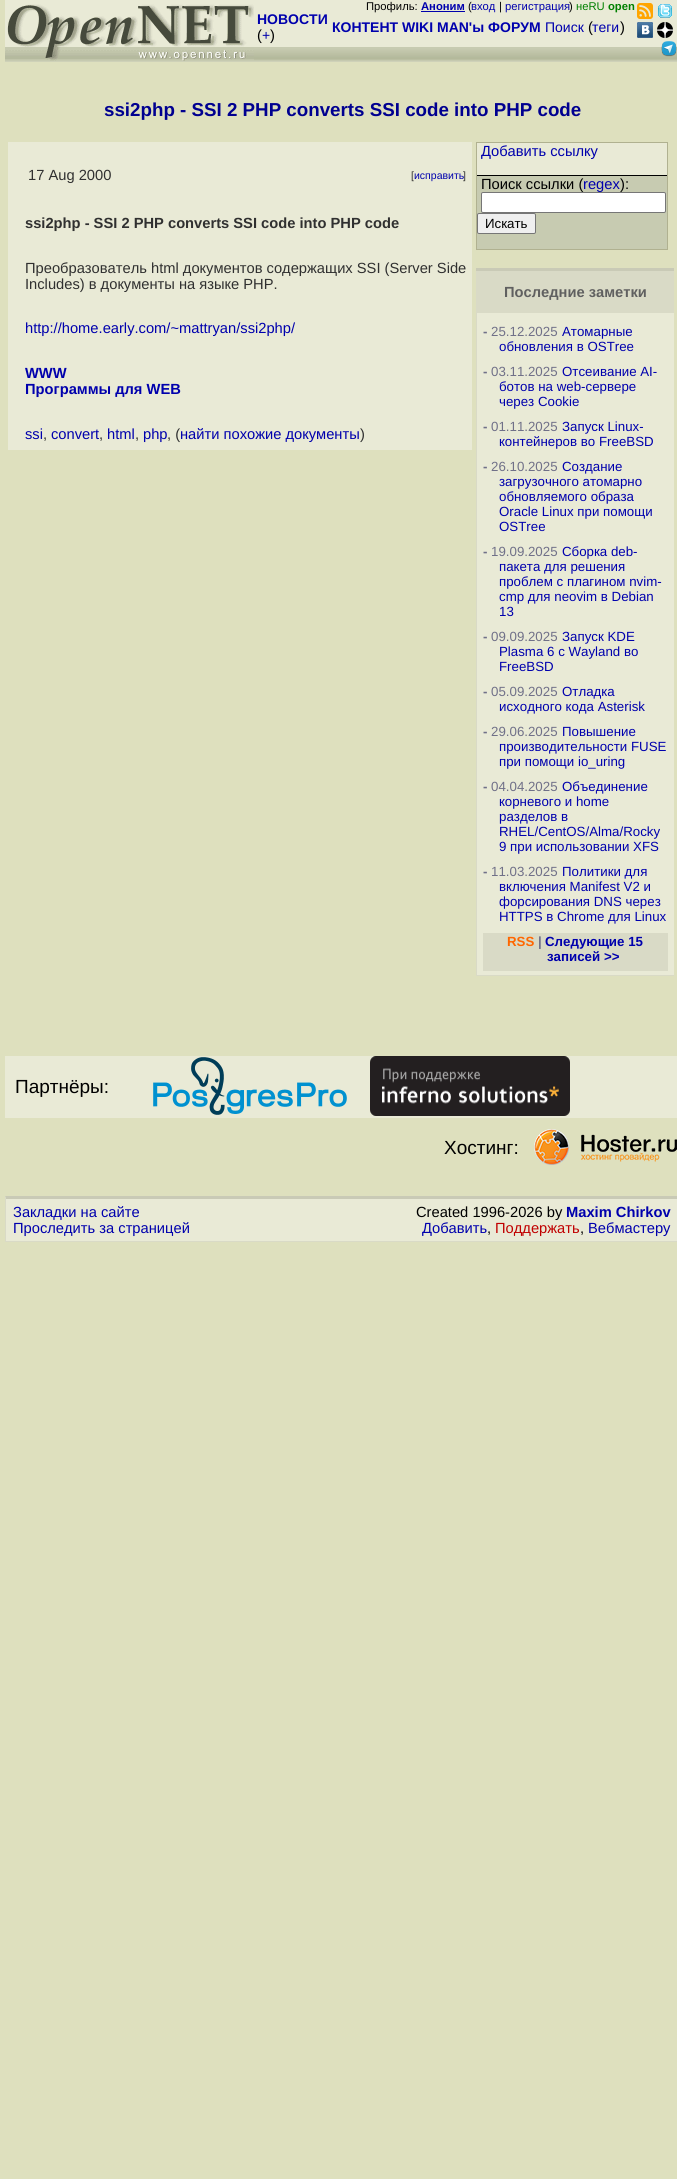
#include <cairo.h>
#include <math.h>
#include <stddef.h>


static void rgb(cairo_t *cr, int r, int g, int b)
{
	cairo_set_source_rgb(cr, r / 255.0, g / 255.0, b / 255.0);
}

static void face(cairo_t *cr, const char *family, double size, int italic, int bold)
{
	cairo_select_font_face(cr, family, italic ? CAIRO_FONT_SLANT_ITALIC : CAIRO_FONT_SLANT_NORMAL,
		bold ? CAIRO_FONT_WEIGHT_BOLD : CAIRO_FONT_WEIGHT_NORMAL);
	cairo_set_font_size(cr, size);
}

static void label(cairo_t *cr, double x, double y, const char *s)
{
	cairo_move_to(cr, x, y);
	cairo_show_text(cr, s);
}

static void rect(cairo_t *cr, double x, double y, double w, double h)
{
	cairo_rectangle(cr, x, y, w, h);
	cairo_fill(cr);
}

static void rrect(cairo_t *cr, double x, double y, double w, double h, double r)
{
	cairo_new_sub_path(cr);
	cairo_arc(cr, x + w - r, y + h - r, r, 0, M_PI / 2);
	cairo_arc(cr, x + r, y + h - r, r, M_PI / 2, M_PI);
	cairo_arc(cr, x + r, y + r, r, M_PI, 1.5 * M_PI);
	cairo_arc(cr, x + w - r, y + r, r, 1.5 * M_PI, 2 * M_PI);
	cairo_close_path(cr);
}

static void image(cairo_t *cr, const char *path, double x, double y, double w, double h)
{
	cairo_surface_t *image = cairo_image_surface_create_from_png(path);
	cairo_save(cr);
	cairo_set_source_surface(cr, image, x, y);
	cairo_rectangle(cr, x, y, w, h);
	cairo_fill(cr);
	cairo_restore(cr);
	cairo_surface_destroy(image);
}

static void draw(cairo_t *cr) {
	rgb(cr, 222, 224, 190);
	cairo_paint(cr);
	rgb(cr, 233, 234, 214);
	rect(cr, 5, 0, 672, 2);
	rect(cr, 5, 2, 672, 45);
	face(cr, "Liberation Sans", 11.25, 0, 0);
	rgb(cr, 0, 0, 0);
	label(cr, 366, 10, "Профиль:");
	face(cr, "Liberation Sans", 11.25, 0, 1);
	rgb(cr, 0, 0, 173);
	label(cr, 421, 10, "Аноним");
	rect(cr, 421, 11, 44, 1);
	face(cr, "Liberation Sans", 11.25, 0, 0);
	rgb(cr, 0, 0, 0);
	label(cr, 468, 10, "(");
	rgb(cr, 0, 0, 173);
	label(cr, 471, 10, "вход");
	rgb(cr, 0, 0, 0);
	label(cr, 499, 10, "|");
	rgb(cr, 0, 0, 173);
	label(cr, 505, 10, "регистрация");
	rgb(cr, 0, 0, 0);
	label(cr, 569, 10, ")");
	rgb(cr, 0, 128, 0);
	label(cr, 576, 10, "неRU");
	face(cr, "Liberation Sans", 11.25, 0, 1);
	label(cr, 608, 10, "open");
	image(cr, "image0.png", 5, 61, 249, 1);
	image(cr, "image1.png", 5, 4, 249, 57);
	image(cr, "image2.png", 254, 47, 373, 15);
	face(cr, "Liberation Sans", 14, 0, 1);
	rgb(cr, 0, 0, 173);
	label(cr, 257, 24, "НОВОСТИ");
	face(cr, "Liberation Sans", 14.7, 0, 0);
	rgb(cr, 0, 0, 0);
	label(cr, 257, 40, "(");
	face(cr, "Liberation Sans", 14, 0, 0);
	rgb(cr, 0, 0, 173);
	label(cr, 262, 40, "+");
	face(cr, "Liberation Sans", 14.7, 0, 0);
	rgb(cr, 0, 0, 0);
	label(cr, 270, 40, ")");
	face(cr, "Liberation Sans", 14, 0, 1);
	rgb(cr, 0, 0, 173);
	label(cr, 332, 32, "КОНТЕНТ WIKI MAN'ы ФОРУМ");
	face(cr, "Liberation Sans", 14, 0, 0);
	label(cr, 545, 32, "Поиск");
	face(cr, "Liberation Sans", 14.7, 0, 0);
	rgb(cr, 0, 0, 0);
	label(cr, 588, 32, "(");
	face(cr, "Liberation Sans", 14, 0, 0);
	rgb(cr, 0, 0, 173);
	label(cr, 592, 32, "теги");
	face(cr, "Liberation Sans", 14.7, 0, 0);
	rgb(cr, 0, 0, 0);
	label(cr, 620, 32, ")");
	image(cr, "image3.png", 627, 47, 50, 15);
	image(cr, "image4.png", 637, 3, 16, 16);
	image(cr, "image5.png", 658, 4, 14, 14);
	image(cr, "image6.png", 637, 22, 16, 16);
	image(cr, "image7.png", 657, 22, 16, 16);
	image(cr, "image8.png", 661, 41, 16, 16);
	face(cr, "Liberation Sans", 18.75, 0, 1);
	rgb(cr, 0, 0, 144);
	label(cr, 104, 116, "ssi2php - SSI 2 PHP converts SSI code into PHP code");
	rgb(cr, 233, 234, 214);
	rect(cr, 8, 142, 464, 308);
	face(cr, "Liberation Sans", 14.7, 0, 0);
	rgb(cr, 48, 48, 48);
	label(cr, 28, 180, "17 Aug 2000");
	face(cr, "Liberation Sans", 10.5, 0, 0);
	label(cr, 411, 179, "[");
	rgb(cr, 0, 0, 173);
	label(cr, 414, 179, "исправить");
	rgb(cr, 48, 48, 48);
	label(cr, 463, 179, "]");
	face(cr, "Liberation Sans", 14.7, 0, 1);
	label(cr, 25, 228, "ssi2php - SSI 2 PHP converts SSI code into PHP code");
	face(cr, "Liberation Sans", 14.7, 0, 0);
	label(cr, 25, 273, "Преобразователь html документов содержащих SSI (Server Side");
	label(cr, 25, 289, "Includes) в документы на языке PHP.");
	rgb(cr, 0, 0, 173);
	label(cr, 25, 333, "http://home.early.com/~mattryan/ssi2php/");
	face(cr, "Liberation Sans", 14.7, 0, 1);
	label(cr, 25, 378, "WWW");
	label(cr, 25, 394, "Программы для WEB");
	face(cr, "Liberation Sans", 14.7, 0, 0);
	label(cr, 25, 439, "ssi");
	rgb(cr, 48, 48, 48);
	label(cr, 43, 439, ",");
	rgb(cr, 0, 0, 173);
	label(cr, 51, 439, "convert");
	rgb(cr, 48, 48, 48);
	label(cr, 99, 439, ",");
	rgb(cr, 0, 0, 173);
	label(cr, 107, 439, "html");
	rgb(cr, 48, 48, 48);
	label(cr, 135, 439, ",");
	rgb(cr, 0, 0, 173);
	label(cr, 143, 439, "php");
	rgb(cr, 48, 48, 48);
	label(cr, 167, 439, ", (");
	rgb(cr, 0, 0, 173);
	label(cr, 180, 439, "найти похожие документы");
	rgb(cr, 48, 48, 48);
	label(cr, 360, 439, ")");
	rgb(cr, 176, 177, 144);
	rect(cr, 476, 142, 192, 108);
	rgb(cr, 233, 234, 214);
	rect(cr, 477, 143, 190, 32);
	rgb(cr, 0, 0, 173);
	label(cr, 481, 156, "Добавить ссылку");
	rgb(cr, 0, 0, 0);
	rect(cr, 477, 175, 190, 1);
	rgb(cr, 199, 203, 177);
	rect(cr, 477, 176, 190, 73);
	rgb(cr, 0, 0, 0);
	label(cr, 481, 189, "Поиск ссылки (");
	rgb(cr, 0, 0, 173);
	label(cr, 583, 189, "regex");
	rgb(cr, 0, 0, 0);
	label(cr, 620, 189, "):");
	rgb(cr, 255, 255, 255);
	rrect(cr, 481.5, 192.5, 184, 20, 1.5);
	cairo_fill_preserve(cr);
	rgb(cr, 118, 118, 118);
	cairo_set_line_width(cr, 1);
	cairo_stroke(cr);
	rgb(cr, 239, 239, 239);
	rrect(cr, 477.5, 213.5, 58, 20, 1.5);
	cairo_fill_preserve(cr);
	rgb(cr, 118, 118, 118);
	cairo_stroke(cr);
	face(cr, "Liberation Sans", 13.3, 0, 0);
	rgb(cr, 0, 0, 0);
	label(cr, 485, 228, "Искать");
	rgb(cr, 217, 218, 198);
	rect(cr, 476, 271, 198, 42);
	rgb(cr, 201, 202, 182);
	rect(cr, 476, 268, 198, 3);
	face(cr, "Liberation Sans", 14.7, 0, 1);
	rgb(cr, 96, 96, 96);
	label(cr, 504, 297, "Последние заметки");
	rgb(cr, 233, 234, 214);
	rect(cr, 477, 313, 197, 662);
	rgb(cr, 217, 218, 198);
	rect(cr, 476, 975, 198, 1);
	rect(cr, 476, 313, 1, 663);
	face(cr, "Liberation Sans", 13.3, 0, 1);
	rgb(cr, 112, 112, 136);
	label(cr, 483, 336, "-");
	face(cr, "Liberation Sans", 13.3, 0, 0);
	label(cr, 491, 336, "25.12.2025");
	rgb(cr, 0, 0, 173);
	label(cr, 562, 336, "Атомарные");
	label(cr, 499, 351, "обновления в OSTree");
	face(cr, "Liberation Sans", 13.3, 0, 1);
	rgb(cr, 112, 112, 136);
	label(cr, 483, 376, "-");
	face(cr, "Liberation Sans", 13.3, 0, 0);
	label(cr, 491, 376, "03.11.2025");
	rgb(cr, 0, 0, 173);
	label(cr, 562, 376, "Отсеивание AI-");
	label(cr, 499, 391, "ботов на web-сервере");
	label(cr, 499, 406, "через Cookie");
	face(cr, "Liberation Sans", 13.3, 0, 1);
	rgb(cr, 112, 112, 136);
	label(cr, 483, 431, "-");
	face(cr, "Liberation Sans", 13.3, 0, 0);
	label(cr, 491, 431, "01.11.2025");
	rgb(cr, 0, 0, 173);
	label(cr, 562, 431, "Запуск Linux-");
	label(cr, 499, 446, "контейнеров во FreeBSD");
	face(cr, "Liberation Sans", 13.3, 0, 1);
	rgb(cr, 112, 112, 136);
	label(cr, 483, 471, "-");
	face(cr, "Liberation Sans", 13.3, 0, 0);
	label(cr, 491, 471, "26.10.2025");
	rgb(cr, 0, 0, 173);
	label(cr, 562, 471, "Создание");
	label(cr, 499, 486, "загрузочного атомарно");
	label(cr, 499, 501, "обновляемого образа");
	label(cr, 499, 516, "Oracle Linux при помощи");
	label(cr, 499, 531, "OSTree");
	face(cr, "Liberation Sans", 13.3, 0, 1);
	rgb(cr, 112, 112, 136);
	label(cr, 483, 556, "-");
	face(cr, "Liberation Sans", 13.3, 0, 0);
	label(cr, 491, 556, "19.09.2025");
	rgb(cr, 0, 0, 173);
	label(cr, 562, 556, "Сборка deb-");
	label(cr, 499, 571, "пакета для решения");
	label(cr, 499, 586, "проблем с плагином nvim-");
	label(cr, 499, 601, "cmp для neovim в Debian");
	label(cr, 499, 616, "13");
	face(cr, "Liberation Sans", 13.3, 0, 1);
	rgb(cr, 112, 112, 136);
	label(cr, 483, 641, "-");
	face(cr, "Liberation Sans", 13.3, 0, 0);
	label(cr, 491, 641, "09.09.2025");
	rgb(cr, 0, 0, 173);
	label(cr, 562, 641, "Запуск KDE");
	label(cr, 499, 656, "Plasma 6 с Wayland во");
	label(cr, 499, 671, "FreeBSD");
	face(cr, "Liberation Sans", 13.3, 0, 1);
	rgb(cr, 112, 112, 136);
	label(cr, 483, 696, "-");
	face(cr, "Liberation Sans", 13.3, 0, 0);
	label(cr, 491, 696, "05.09.2025");
	rgb(cr, 0, 0, 173);
	label(cr, 562, 696, "Отладка");
	label(cr, 499, 711, "исходного кода Asterisk");
	face(cr, "Liberation Sans", 13.3, 0, 1);
	rgb(cr, 112, 112, 136);
	label(cr, 483, 736, "-");
	face(cr, "Liberation Sans", 13.3, 0, 0);
	label(cr, 491, 736, "29.06.2025");
	rgb(cr, 0, 0, 173);
	label(cr, 562, 736, "Повышение");
	label(cr, 499, 751, "производительности FUSE");
	label(cr, 499, 766, "при помощи io_uring");
	face(cr, "Liberation Sans", 13.3, 0, 1);
	rgb(cr, 112, 112, 136);
	label(cr, 483, 791, "-");
	face(cr, "Liberation Sans", 13.3, 0, 0);
	label(cr, 491, 791, "04.04.2025");
	rgb(cr, 0, 0, 173);
	label(cr, 562, 791, "Объединение");
	label(cr, 499, 806, "корневого и home");
	label(cr, 499, 821, "разделов в");
	label(cr, 499, 836, "RHEL/CentOS/Alma/Rocky");
	label(cr, 499, 851, "9 при использовании XFS");
	face(cr, "Liberation Sans", 13.3, 0, 1);
	rgb(cr, 112, 112, 136);
	label(cr, 483, 876, "-");
	face(cr, "Liberation Sans", 13.3, 0, 0);
	label(cr, 491, 876, "11.03.2025");
	rgb(cr, 0, 0, 173);
	label(cr, 562, 876, "Политики для");
	label(cr, 499, 891, "включения Manifest V2 и");
	label(cr, 499, 906, "форсирования DNS через");
	label(cr, 499, 921, "HTTPS в Chrome для Linux");
	rgb(cr, 217, 218, 198);
	rect(cr, 483, 933, 185, 38);
	face(cr, "Liberation Sans", 13.3, 0, 1);
	rgb(cr, 255, 102, 0);
	label(cr, 507, 946, "RSS");
	rgb(cr, 112, 112, 136);
	label(cr, 538, 946, "|");
	rgb(cr, 0, 0, 173);
	label(cr, 545, 946, "Следующие 15");
	label(cr, 547, 961, "записей >>");
	rgb(cr, 233, 234, 214);
	rect(cr, 5, 1056, 672, 62);
	face(cr, "Liberation Sans", 19, 0, 0);
	rgb(cr, 0, 0, 0);
	label(cr, 15, 1093, "Партнёры:");
	image(cr, "image9.png", 153, 1057, 194, 58);
	image(cr, "image10.png", 370, 1056, 200, 60);
	label(cr, 444, 1154, "Хостинг:");
	image(cr, "image11.png", 534, 1129, 143, 36);
	rgb(cr, 233, 234, 214);
	rect(cr, 5, 1196, 672, 45);
	rgb(cr, 201, 202, 182);
	cairo_new_path(cr);
	cairo_move_to(cr, 5, 1196);
	cairo_line_to(cr, 677, 1196);
	cairo_line_to(cr, 677, 1199);
	cairo_line_to(cr, 6, 1199);
	cairo_close_path(cr);
	cairo_fill(cr);
	rgb(cr, 217, 218, 198);
	rect(cr, 5, 1241, 672, 1);
	cairo_new_path(cr);
	cairo_move_to(cr, 5, 1242);
	cairo_line_to(cr, 5, 1196);
	cairo_line_to(cr, 6, 1199);
	cairo_line_to(cr, 6, 1241);
	cairo_close_path(cr);
	cairo_fill(cr);
	face(cr, "Liberation Sans", 14.7, 0, 0);
	rgb(cr, 0, 0, 173);
	label(cr, 13, 1217, "Закладки на сайте");
	label(cr, 13, 1233, "Проследить за страницей");
	rgb(cr, 0, 0, 0);
	label(cr, 416, 1217, "Created 1996-2026 by");
	face(cr, "Liberation Sans", 14.7, 0, 1);
	rgb(cr, 0, 0, 173);
	label(cr, 566, 1217, "Maxim Chirkov");
	face(cr, "Liberation Sans", 14.7, 0, 0);
	label(cr, 422, 1233, "Добавить");
	rgb(cr, 0, 0, 0);
	label(cr, 487, 1233, ",");
	rgb(cr, 192, 0, 0);
	label(cr, 495, 1233, "Поддержать");
	rgb(cr, 0, 0, 0);
	label(cr, 580, 1233, ",");
	rgb(cr, 0, 0, 173);
	label(cr, 588, 1233, "Вебмастеру");
}

int main(void) {
	cairo_surface_t *surface = cairo_image_surface_create(CAIRO_FORMAT_RGB24, 677, 2179);
	cairo_t *cr = cairo_create(surface);
	cairo_font_options_t *options = cairo_font_options_create();
	cairo_font_options_set_hint_metrics(options, CAIRO_HINT_METRICS_OFF);
	cairo_font_options_set_hint_style(options, CAIRO_HINT_STYLE_NONE);
	cairo_set_font_options(cr, options);
	cairo_set_miter_limit(cr, 4);
	draw(cr);
	cairo_surface_write_to_png(surface, "render.png");
	cairo_font_options_destroy(options);
	cairo_destroy(cr);
	cairo_surface_destroy(surface);
	return 0;
}
